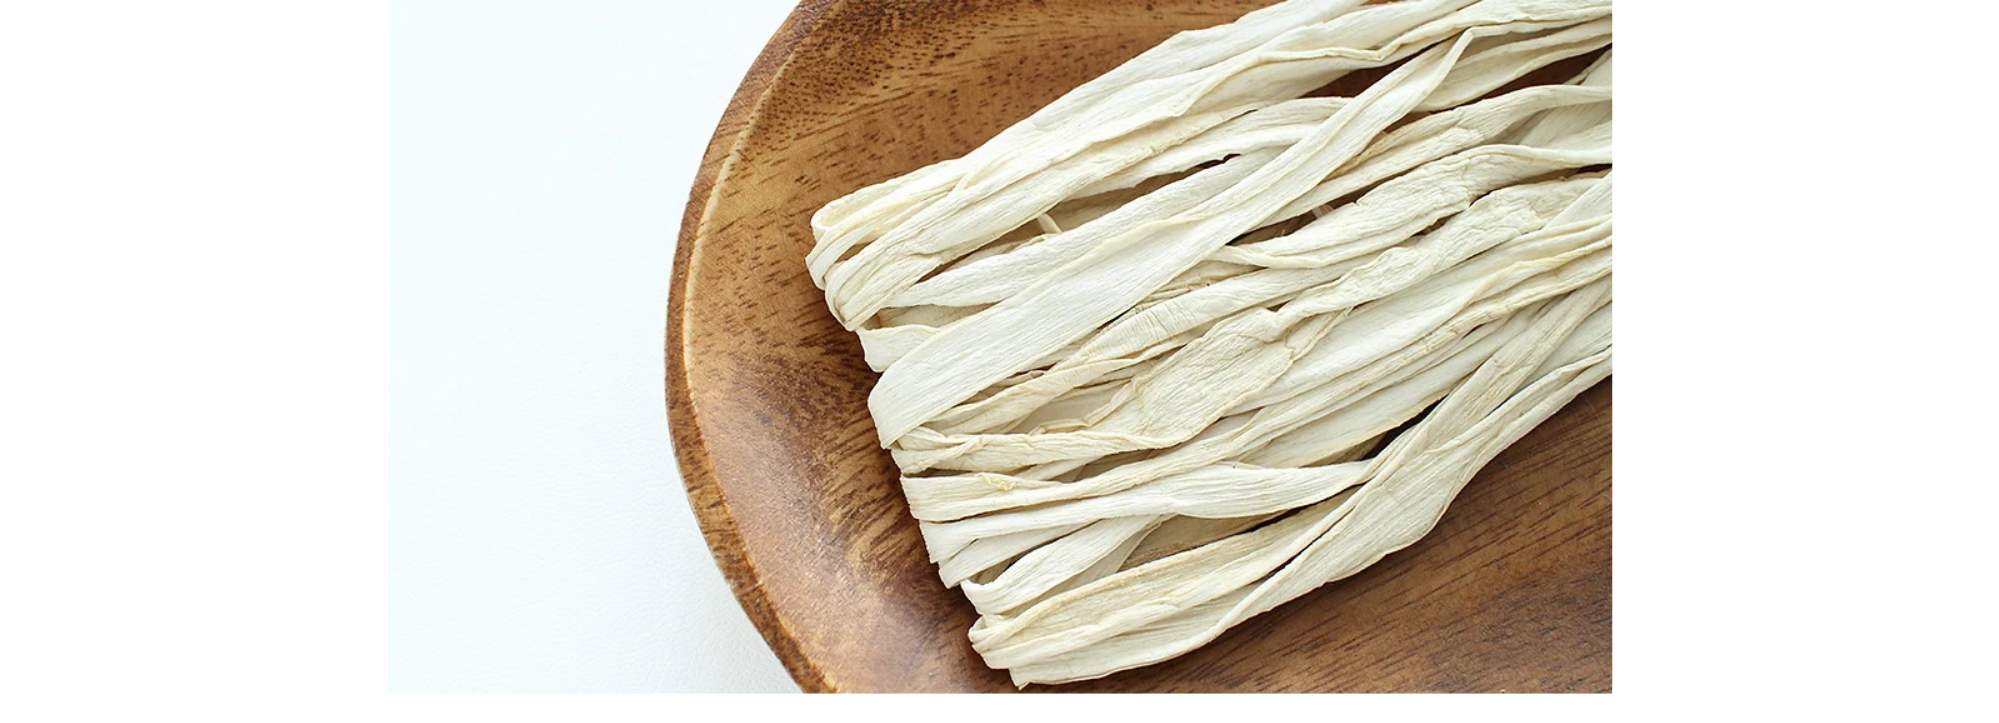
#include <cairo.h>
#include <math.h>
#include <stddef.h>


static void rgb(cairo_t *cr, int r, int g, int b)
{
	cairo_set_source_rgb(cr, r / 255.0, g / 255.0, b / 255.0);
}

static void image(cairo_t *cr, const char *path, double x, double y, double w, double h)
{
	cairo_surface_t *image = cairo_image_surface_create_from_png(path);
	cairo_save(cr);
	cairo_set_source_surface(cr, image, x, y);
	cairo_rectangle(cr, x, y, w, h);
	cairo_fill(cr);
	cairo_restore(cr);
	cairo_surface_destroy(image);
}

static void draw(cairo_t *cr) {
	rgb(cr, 255, 255, 255);
	cairo_paint(cr);
	image(cr, "image0.png", 388, 0, 1225, 694);
}

int main(void) {
	cairo_surface_t *surface = cairo_image_surface_create(CAIRO_FORMAT_RGB24, 1999, 723);
	cairo_t *cr = cairo_create(surface);
	cairo_font_options_t *options = cairo_font_options_create();
	cairo_font_options_set_hint_metrics(options, CAIRO_HINT_METRICS_OFF);
	cairo_font_options_set_hint_style(options, CAIRO_HINT_STYLE_NONE);
	cairo_set_font_options(cr, options);
	cairo_set_miter_limit(cr, 4);
	draw(cr);
	cairo_surface_write_to_png(surface, "render.png");
	cairo_font_options_destroy(options);
	cairo_destroy(cr);
	cairo_surface_destroy(surface);
	return 0;
}
